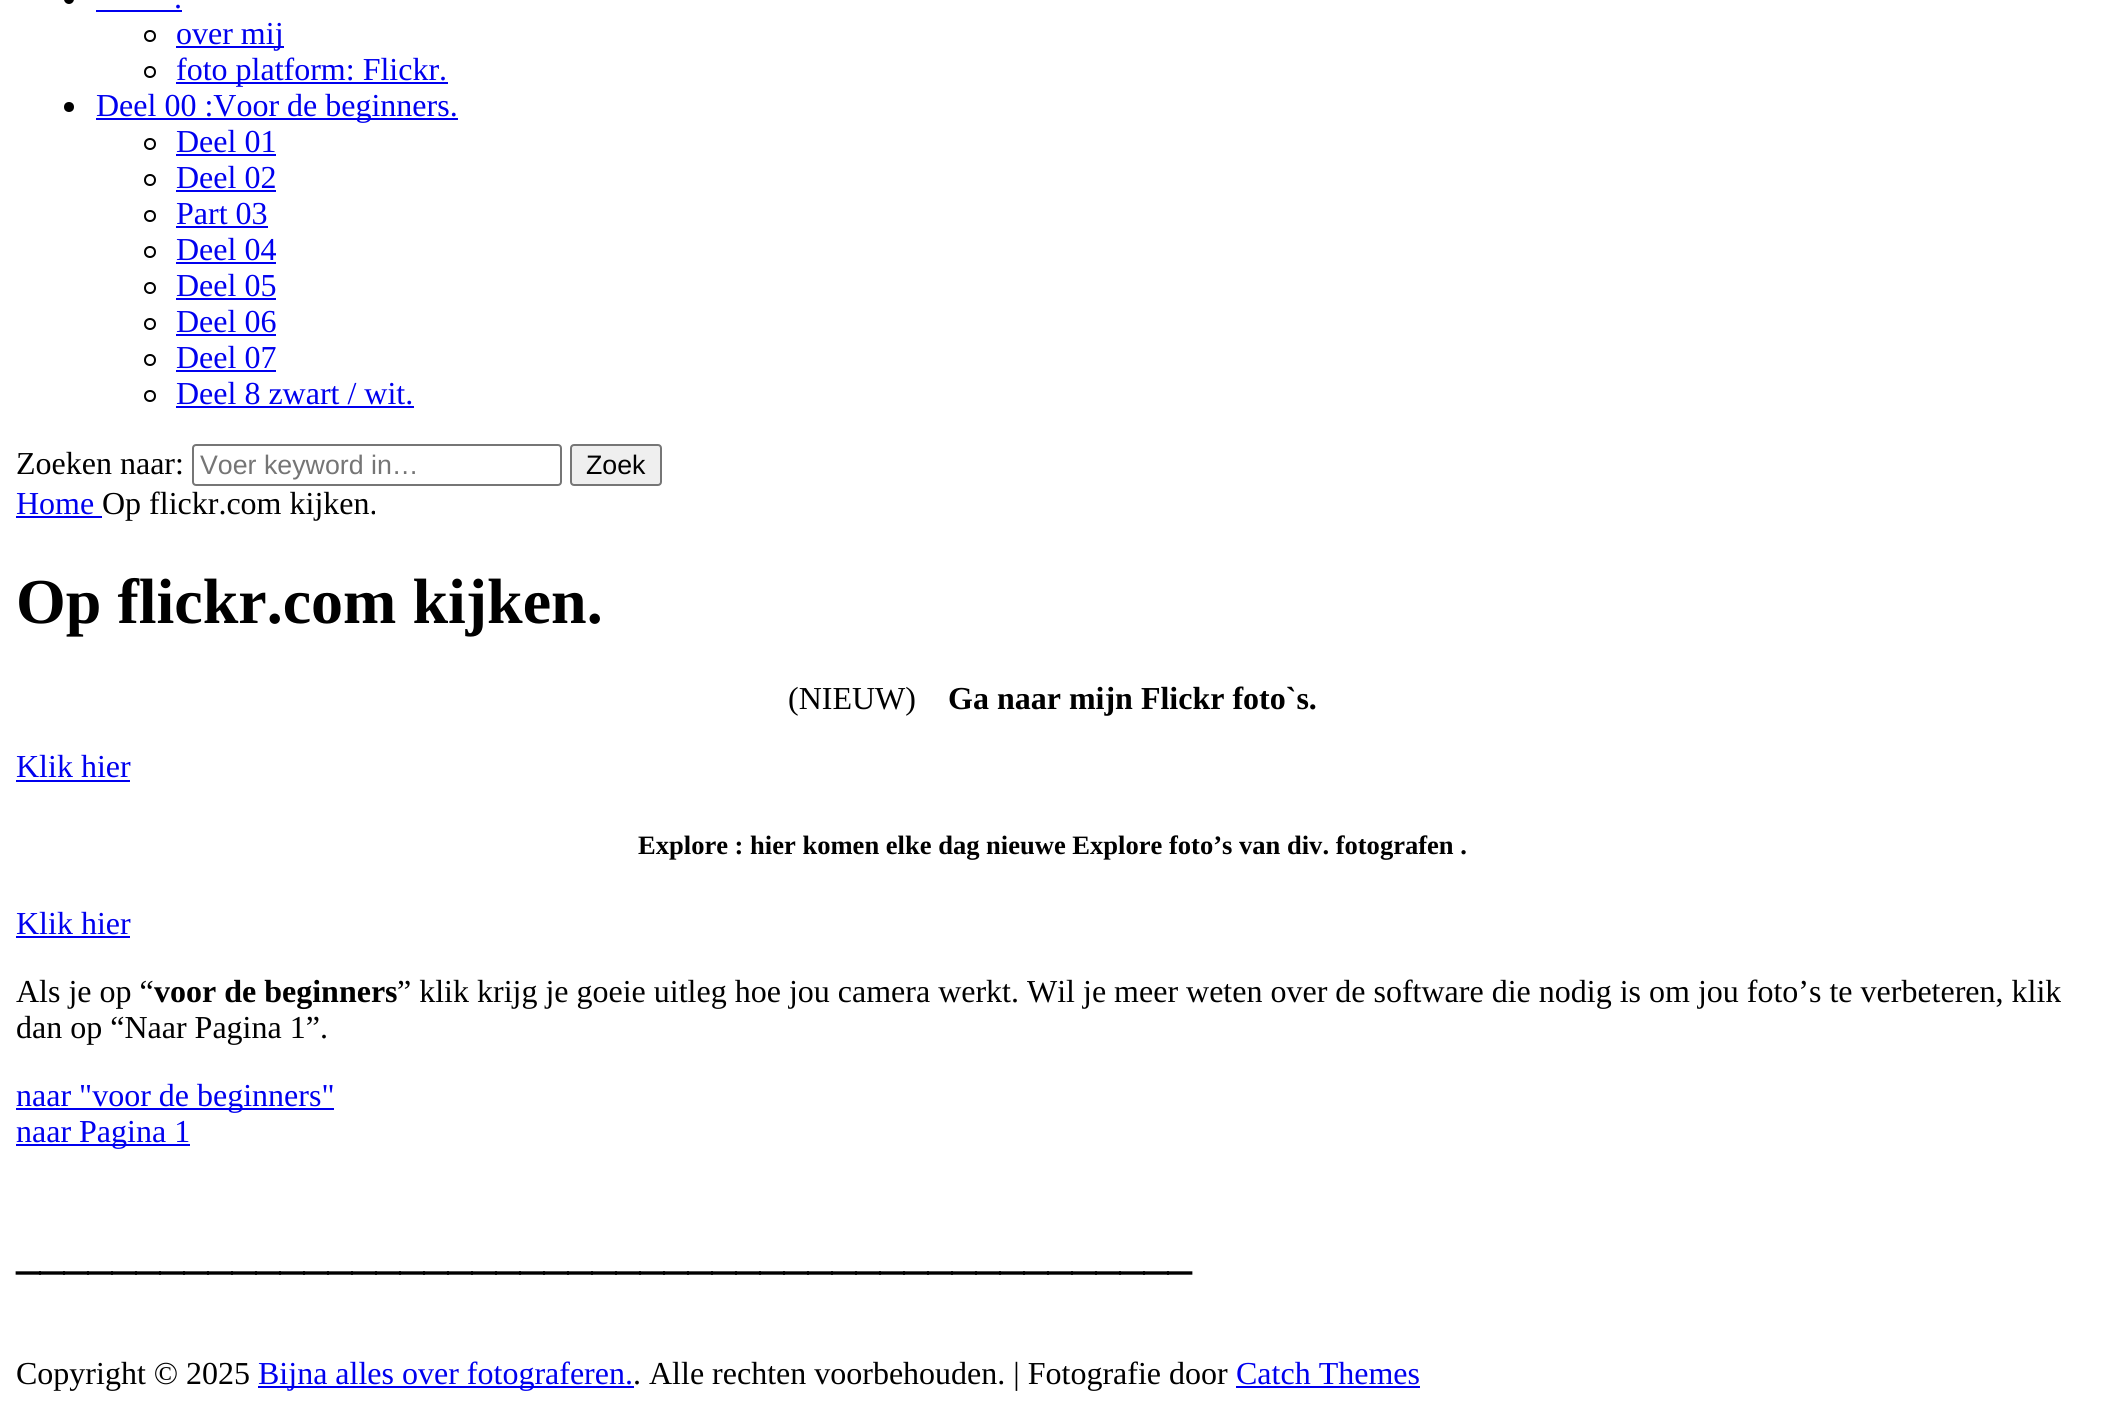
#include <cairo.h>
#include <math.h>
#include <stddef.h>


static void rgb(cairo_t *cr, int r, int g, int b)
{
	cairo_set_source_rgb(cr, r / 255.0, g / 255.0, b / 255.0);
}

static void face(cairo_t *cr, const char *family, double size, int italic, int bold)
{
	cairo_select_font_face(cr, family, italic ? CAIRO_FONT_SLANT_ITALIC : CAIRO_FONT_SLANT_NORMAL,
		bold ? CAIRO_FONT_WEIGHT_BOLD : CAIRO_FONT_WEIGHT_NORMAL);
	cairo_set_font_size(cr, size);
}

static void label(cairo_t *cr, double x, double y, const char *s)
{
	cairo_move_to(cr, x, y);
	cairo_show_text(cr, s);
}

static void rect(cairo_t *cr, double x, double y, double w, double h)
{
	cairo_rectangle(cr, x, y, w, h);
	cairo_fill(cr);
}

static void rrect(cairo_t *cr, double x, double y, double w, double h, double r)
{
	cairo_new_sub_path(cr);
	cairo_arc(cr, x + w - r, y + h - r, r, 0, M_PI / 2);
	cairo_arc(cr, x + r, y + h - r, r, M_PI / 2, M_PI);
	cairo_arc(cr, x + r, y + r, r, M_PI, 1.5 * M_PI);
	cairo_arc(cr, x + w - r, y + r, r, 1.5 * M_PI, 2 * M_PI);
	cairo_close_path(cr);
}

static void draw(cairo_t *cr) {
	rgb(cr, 255, 255, 255);
	cairo_paint(cr);
	rgb(cr, 0, 0, 0);
	rrect(cr, 64, -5, 10, 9, 5);
	cairo_fill(cr);
	face(cr, "Liberation Serif", 32, 0, 0);
	rgb(cr, 0, 0, 238);
	label(cr, 174, 8, ".");
	rect(cr, 96, 10, 86, 2);
	cairo_new_path(cr);
	cairo_arc(cr, 150, 36, 5, 0, 2 * M_PI);
	rgb(cr, 0, 0, 0);
	cairo_stroke(cr);
	rgb(cr, 0, 0, 238);
	rect(cr, 176, 46, 108, 2);
	label(cr, 176, 44, "over mij");
	cairo_new_path(cr);
	cairo_arc(cr, 150, 72, 5, 0, 2 * M_PI);
	rgb(cr, 0, 0, 0);
	cairo_stroke(cr);
	rgb(cr, 0, 0, 238);
	rect(cr, 176, 82, 272, 2);
	label(cr, 176, 80, "foto platform: Flickr.");
	rgb(cr, 0, 0, 0);
	cairo_new_path(cr);
	cairo_arc(cr, 69, 107, 5, 0, 2 * M_PI);
	cairo_fill(cr);
	rgb(cr, 0, 0, 238);
	rect(cr, 96, 118, 362, 2);
	label(cr, 96, 116, "Deel 00 :Voor de beginners.");
	cairo_new_path(cr);
	cairo_arc(cr, 150, 144, 5, 0, 2 * M_PI);
	rgb(cr, 0, 0, 0);
	cairo_stroke(cr);
	rgb(cr, 0, 0, 238);
	label(cr, 176, 152, "Deel 01");
	rect(cr, 176, 154, 100, 2);
	cairo_new_path(cr);
	cairo_arc(cr, 150, 180, 5, 0, 2 * M_PI);
	rgb(cr, 0, 0, 0);
	cairo_stroke(cr);
	rgb(cr, 0, 0, 238);
	label(cr, 176, 188, "Deel 02");
	rect(cr, 176, 190, 100, 2);
	cairo_new_path(cr);
	cairo_arc(cr, 150, 216, 5, 0, 2 * M_PI);
	rgb(cr, 0, 0, 0);
	cairo_stroke(cr);
	rgb(cr, 0, 0, 238);
	label(cr, 176, 224, "Part 03");
	rect(cr, 176, 226, 92, 2);
	cairo_new_path(cr);
	cairo_arc(cr, 150, 252, 5, 0, 2 * M_PI);
	rgb(cr, 0, 0, 0);
	cairo_stroke(cr);
	rgb(cr, 0, 0, 238);
	label(cr, 176, 260, "Deel 04");
	rect(cr, 176, 262, 100, 2);
	cairo_new_path(cr);
	cairo_arc(cr, 150, 288, 5, 0, 2 * M_PI);
	rgb(cr, 0, 0, 0);
	cairo_stroke(cr);
	rgb(cr, 0, 0, 238);
	label(cr, 176, 296, "Deel 05");
	rect(cr, 176, 298, 100, 2);
	cairo_new_path(cr);
	cairo_arc(cr, 150, 324, 5, 0, 2 * M_PI);
	rgb(cr, 0, 0, 0);
	cairo_stroke(cr);
	rgb(cr, 0, 0, 238);
	label(cr, 176, 332, "Deel 06");
	rect(cr, 176, 334, 100, 2);
	cairo_new_path(cr);
	cairo_arc(cr, 150, 360, 5, 0, 2 * M_PI);
	rgb(cr, 0, 0, 0);
	cairo_stroke(cr);
	rgb(cr, 0, 0, 238);
	label(cr, 176, 368, "Deel 07");
	rect(cr, 176, 370, 100, 2);
	cairo_new_path(cr);
	cairo_arc(cr, 150, 396, 5, 0, 2 * M_PI);
	rgb(cr, 0, 0, 0);
	cairo_stroke(cr);
	rgb(cr, 0, 0, 238);
	label(cr, 176, 404, "Deel 8 zwart / wit.");
	rect(cr, 176, 406, 238, 2);
	rgb(cr, 0, 0, 0);
	label(cr, 16, 474, "Zoeken naar:");
	rrect(cr, 193, 445, 368, 40, 3);
	rgb(cr, 118, 118, 118);
	cairo_stroke(cr);
	face(cr, "Liberation Sans", 26.75, 0, 0);
	rgb(cr, 117, 117, 117);
	label(cr, 200, 474, "Voer keyword in…");
	rgb(cr, 239, 239, 239);
	rrect(cr, 571, 445, 90, 40, 3);
	cairo_fill_preserve(cr);
	rgb(cr, 118, 118, 118);
	cairo_stroke(cr);
	rgb(cr, 0, 0, 0);
	label(cr, 586, 474, "Zoek");
	face(cr, "Liberation Serif", 32, 0, 0);
	rgb(cr, 0, 0, 238);
	label(cr, 16, 514, "Home");
	rect(cr, 16, 516, 86, 2);
	rgb(cr, 0, 0, 0);
	label(cr, 102, 514, "Op flickr.com kijken.");
	face(cr, "Liberation Serif", 64, 0, 1);
	label(cr, 16, 623, "Op flickr.com kijken.");
	face(cr, "Liberation Serif", 32, 0, 0);
	label(cr, 788, 709, "(NIEUW)");
	face(cr, "Liberation Serif", 32, 0, 1);
	label(cr, 948, 709, "Ga naar mijn Flickr foto`s.");
	face(cr, "Liberation Serif", 32, 0, 0);
	rgb(cr, 0, 0, 238);
	label(cr, 16, 777, "Klik hier");
	rect(cr, 16, 780, 114, 2);
	face(cr, "Liberation Serif", 26.55, 0, 1);
	rgb(cr, 0, 0, 0);
	label(cr, 638, 854, "Explore : hier komen elke dag nieuwe Explore foto’s van div. fotografen .");
	face(cr, "Liberation Serif", 32, 0, 0);
	rgb(cr, 0, 0, 238);
	label(cr, 16, 934, "Klik hier");
	rect(cr, 16, 936, 114, 2);
	rgb(cr, 0, 0, 0);
	label(cr, 16, 1002, "Als je op “");
	face(cr, "Liberation Serif", 32, 0, 1);
	label(cr, 154, 1002, "voor de beginners");
	face(cr, "Liberation Serif", 32, 0, 0);
	label(cr, 397, 1002, "” klik krijg je goeie uitleg hoe jou camera werkt. Wil je meer weten over de software die nodig is om jou foto’s te verbeteren, klik");
	label(cr, 16, 1038, "dan op “Naar Pagina 1”.");
	rgb(cr, 0, 0, 238);
	rect(cr, 16, 1108, 318, 2);
	label(cr, 16, 1106, "naar \"voor de beginners\"");
	rect(cr, 16, 1144, 174, 2);
	label(cr, 16, 1142, "naar Pagina 1");
	face(cr, "Liberation Serif", 48, 0, 1);
	rgb(cr, 0, 0, 0);
	label(cr, 16, 1268, "_________________________________________________");
	face(cr, "Liberation Serif", 32, 0, 0);
	label(cr, 16, 1384, "Copyright © 2025");
	rgb(cr, 0, 0, 238);
	rect(cr, 258, 1386, 376, 2);
	label(cr, 258, 1384, "Bijna alles over fotograferen.");
	rgb(cr, 0, 0, 0);
	label(cr, 633, 1384, ". Alle rechten voorbehouden. | Fotografie door");
	rgb(cr, 0, 0, 238);
	label(cr, 1236, 1384, "Catch Themes");
	rect(cr, 1236, 1386, 184, 2);
}

int main(void) {
	cairo_surface_t *surface = cairo_image_surface_create(CAIRO_FORMAT_RGB24, 2104, 1413);
	cairo_t *cr = cairo_create(surface);
	cairo_font_options_t *options = cairo_font_options_create();
	cairo_font_options_set_hint_metrics(options, CAIRO_HINT_METRICS_OFF);
	cairo_font_options_set_hint_style(options, CAIRO_HINT_STYLE_NONE);
	cairo_set_font_options(cr, options);
	cairo_set_miter_limit(cr, 4);
	draw(cr);
	cairo_surface_write_to_png(surface, "render.png");
	cairo_font_options_destroy(options);
	cairo_destroy(cr);
	cairo_surface_destroy(surface);
	return 0;
}
